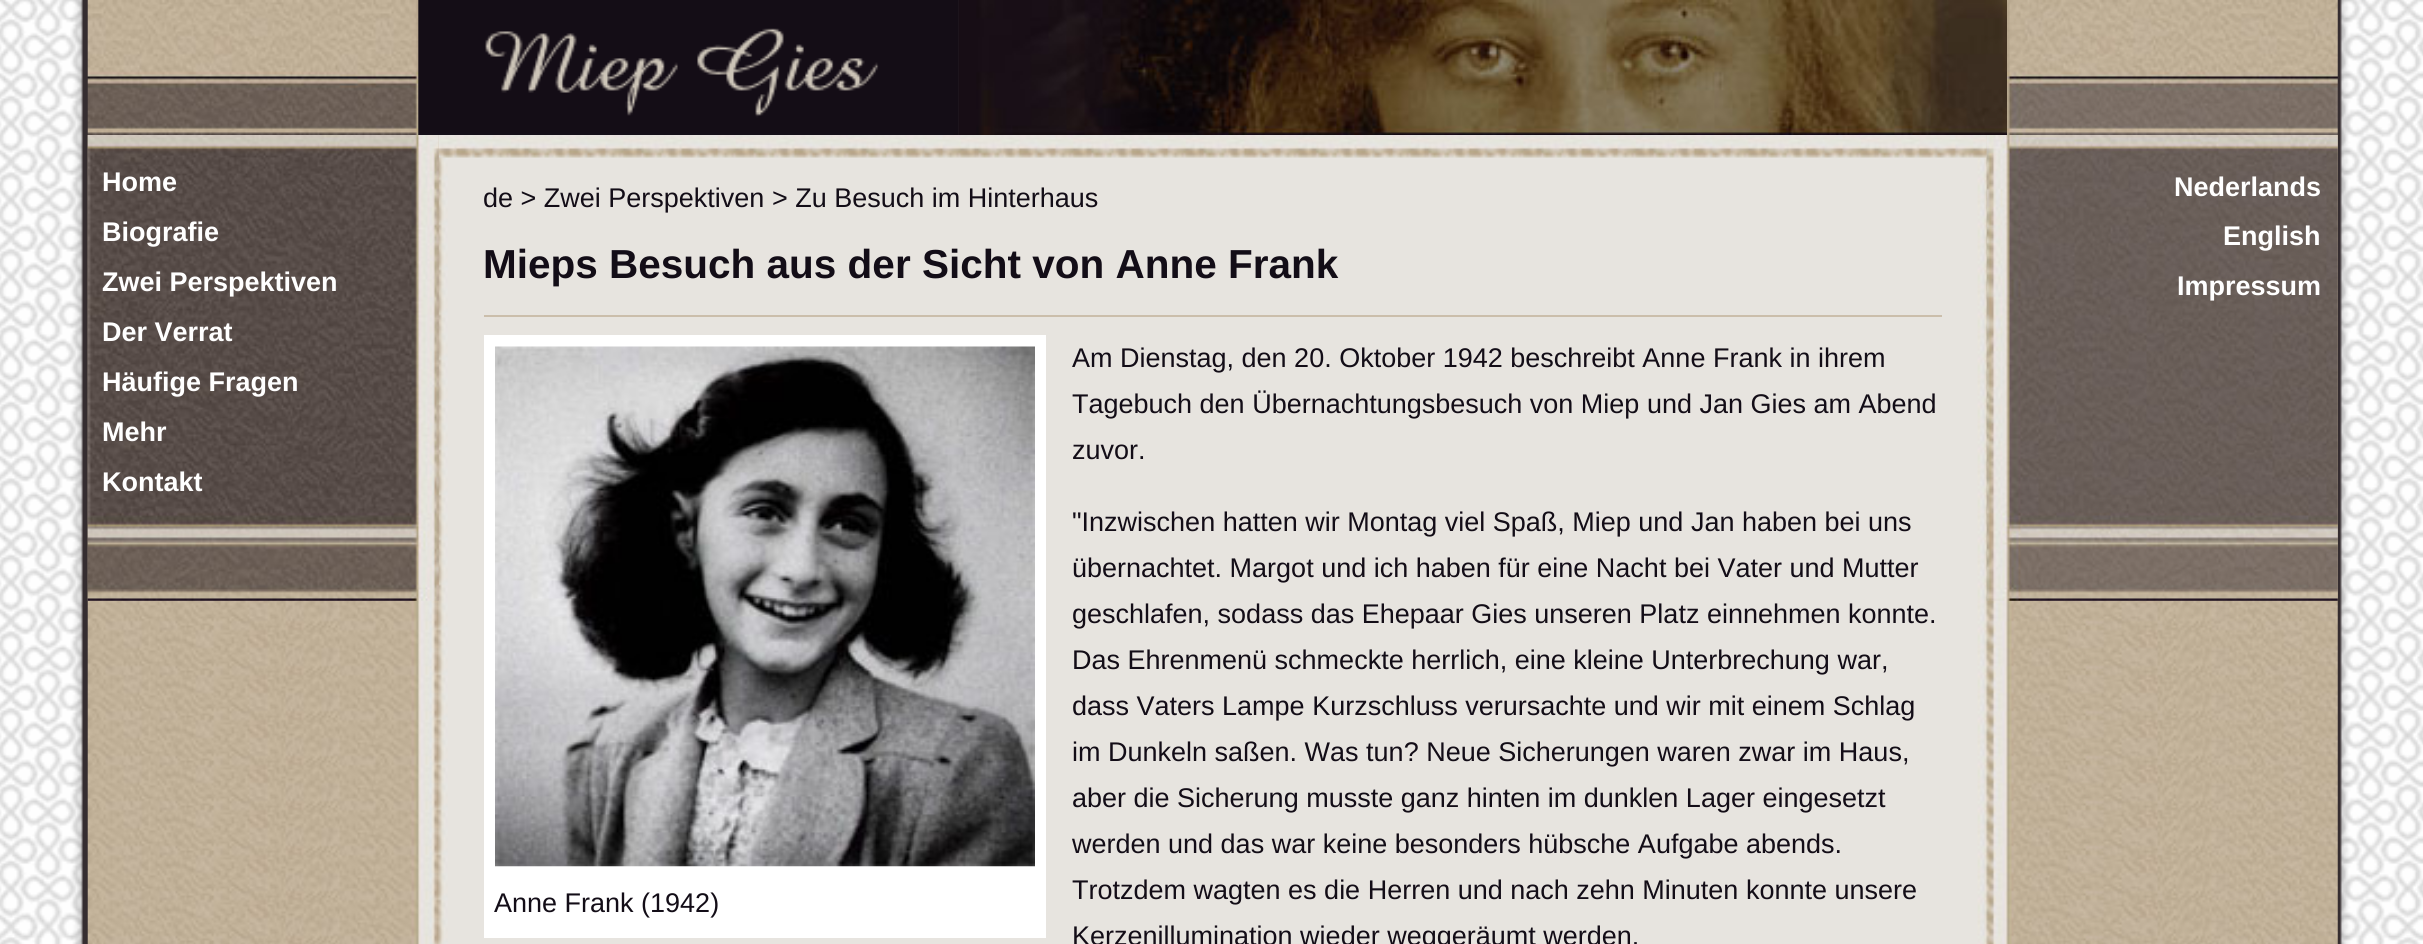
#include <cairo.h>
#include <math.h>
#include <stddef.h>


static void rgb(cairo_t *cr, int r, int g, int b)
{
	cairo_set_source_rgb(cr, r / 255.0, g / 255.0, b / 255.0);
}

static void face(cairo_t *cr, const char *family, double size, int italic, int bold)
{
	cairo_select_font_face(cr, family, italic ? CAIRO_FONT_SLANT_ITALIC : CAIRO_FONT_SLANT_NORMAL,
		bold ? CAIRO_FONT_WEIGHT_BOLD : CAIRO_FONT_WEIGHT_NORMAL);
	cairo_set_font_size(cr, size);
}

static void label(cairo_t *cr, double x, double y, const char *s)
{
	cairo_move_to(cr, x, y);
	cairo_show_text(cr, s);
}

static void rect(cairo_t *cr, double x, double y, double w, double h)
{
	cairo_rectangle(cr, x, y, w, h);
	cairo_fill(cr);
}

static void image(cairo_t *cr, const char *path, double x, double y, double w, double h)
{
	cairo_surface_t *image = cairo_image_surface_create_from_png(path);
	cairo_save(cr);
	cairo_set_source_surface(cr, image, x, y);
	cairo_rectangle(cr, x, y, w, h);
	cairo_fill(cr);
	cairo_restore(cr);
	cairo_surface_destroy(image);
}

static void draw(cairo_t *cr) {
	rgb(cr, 255, 255, 255);
	cairo_paint(cr);
	image(cr, "image0.png", 0, 0, 2423, 944);
	image(cr, "image1.png", 87, 0, 332, 135);
	image(cr, "image3.png", 958, 0, 1049, 135);
	image(cr, "image2.png", 418, 0, 541, 135);
	image(cr, "image4.png", 2007, 0, 331, 135);
	image(cr, "image5.png", 87, 135, 2251, 809);
	image(cr, "image7.png", 438, 135, 1549, 23);
	image(cr, "image6.png", 87, 135, 352, 466);
	face(cr, "Liberation Sans", 27, 0, 1);
	rgb(cr, 255, 255, 255);
	label(cr, 102, 191, "Home");
	label(cr, 102, 241, "Biografie");
	label(cr, 102, 291, "Zwei Perspektiven");
	label(cr, 102, 341, "Der Verrat");
	label(cr, 102, 391, "Häufige Fragen");
	label(cr, 102, 441, "Mehr");
	label(cr, 102, 491, "Kontakt");
	face(cr, "Liberation Sans", 27, 0, 0);
	rgb(cr, 19, 13, 23);
	label(cr, 483, 207, "de > Zwei Perspektiven > Zu Besuch im Hinterhaus");
	rgb(cr, 203, 190, 171);
	rect(cr, 484, 315, 1458, 2);
	face(cr, "Liberation Sans", 40.5, 0, 1);
	rgb(cr, 19, 13, 23);
	label(cr, 483, 278, "Mieps Besuch aus der Sicht von Anne Frank");
	face(cr, "Liberation Sans", 27, 0, 0);
	label(cr, 1072, 367, "Am Dienstag, den 20. Oktober 1942 beschreibt Anne Frank in ihrem");
	label(cr, 1072, 413, "Tagebuch den Übernachtungsbesuch von Miep und Jan Gies am Abend");
	label(cr, 1072, 459, "zuvor.");
	rgb(cr, 255, 255, 255);
	rect(cr, 484, 335, 562, 603);
	image(cr, "image8.png", 495, 346, 540, 521);
	rgb(cr, 19, 13, 23);
	label(cr, 494, 912, "Anne Frank (1942)");
	label(cr, 1072, 531, "\"Inzwischen hatten wir Montag viel Spaß, Miep und Jan haben bei uns");
	label(cr, 1072, 577, "übernachtet. Margot und ich haben für eine Nacht bei Vater und Mutter");
	label(cr, 1072, 623, "geschlafen, sodass das Ehepaar Gies unseren Platz einnehmen konnte.");
	label(cr, 1072, 669, "Das Ehrenmenü schmeckte herrlich, eine kleine Unterbrechung war,");
	label(cr, 1072, 715, "dass Vaters Lampe Kurzschluss verursachte und wir mit einem Schlag");
	label(cr, 1072, 761, "im Dunkeln saßen. Was tun? Neue Sicherungen waren zwar im Haus,");
	label(cr, 1072, 807, "aber die Sicherung musste ganz hinten im dunklen Lager eingesetzt");
	label(cr, 1072, 853, "werden und das war keine besonders hübsche Aufgabe abends.");
	label(cr, 1072, 899, "Trotzdem wagten es die Herren und nach zehn Minuten konnte unsere");
	label(cr, 1072, 945, "Kerzenillumination wieder weggeräumt werden.");
	image(cr, "image9.png", 1986, 135, 352, 466);
	face(cr, "Liberation Sans", 27, 0, 1);
	rgb(cr, 255, 255, 255);
	label(cr, 2174, 196, "Nederlands");
	label(cr, 2223, 245, "English");
	label(cr, 2177, 295, "Impressum");
}

int main(void) {
	cairo_surface_t *surface = cairo_image_surface_create(CAIRO_FORMAT_RGB24, 2423, 944);
	cairo_t *cr = cairo_create(surface);
	cairo_font_options_t *options = cairo_font_options_create();
	cairo_font_options_set_hint_metrics(options, CAIRO_HINT_METRICS_OFF);
	cairo_font_options_set_hint_style(options, CAIRO_HINT_STYLE_NONE);
	cairo_set_font_options(cr, options);
	cairo_set_miter_limit(cr, 4);
	draw(cr);
	cairo_surface_write_to_png(surface, "render.png");
	cairo_font_options_destroy(options);
	cairo_destroy(cr);
	cairo_surface_destroy(surface);
	return 0;
}
